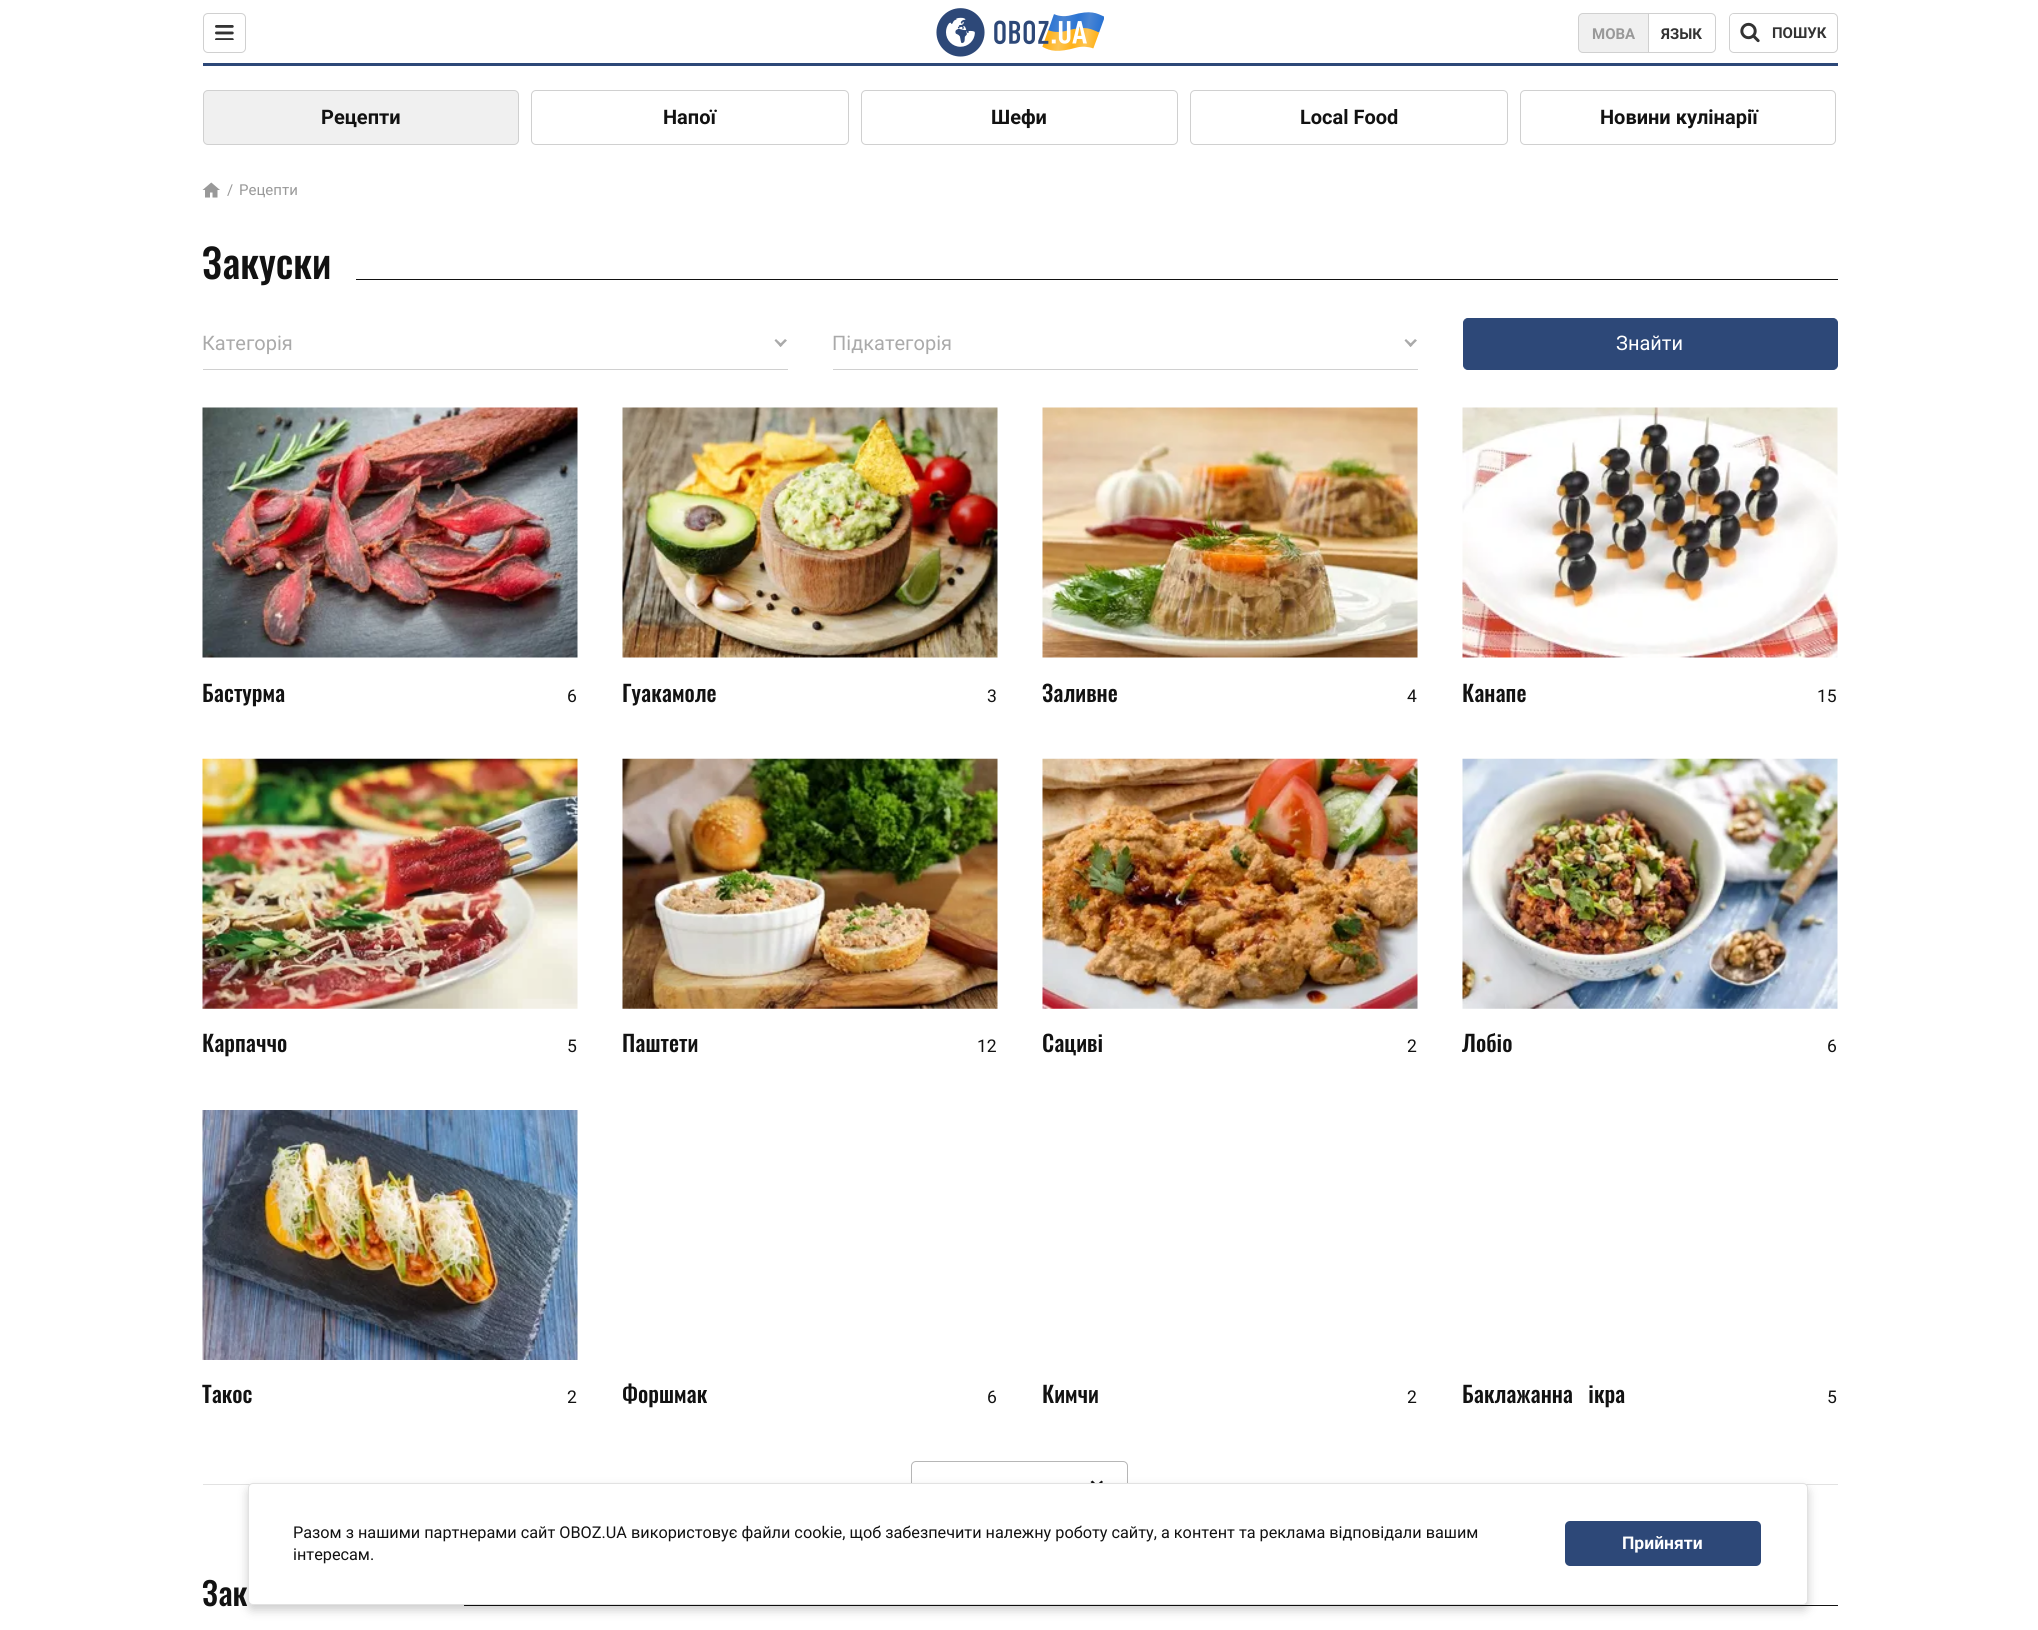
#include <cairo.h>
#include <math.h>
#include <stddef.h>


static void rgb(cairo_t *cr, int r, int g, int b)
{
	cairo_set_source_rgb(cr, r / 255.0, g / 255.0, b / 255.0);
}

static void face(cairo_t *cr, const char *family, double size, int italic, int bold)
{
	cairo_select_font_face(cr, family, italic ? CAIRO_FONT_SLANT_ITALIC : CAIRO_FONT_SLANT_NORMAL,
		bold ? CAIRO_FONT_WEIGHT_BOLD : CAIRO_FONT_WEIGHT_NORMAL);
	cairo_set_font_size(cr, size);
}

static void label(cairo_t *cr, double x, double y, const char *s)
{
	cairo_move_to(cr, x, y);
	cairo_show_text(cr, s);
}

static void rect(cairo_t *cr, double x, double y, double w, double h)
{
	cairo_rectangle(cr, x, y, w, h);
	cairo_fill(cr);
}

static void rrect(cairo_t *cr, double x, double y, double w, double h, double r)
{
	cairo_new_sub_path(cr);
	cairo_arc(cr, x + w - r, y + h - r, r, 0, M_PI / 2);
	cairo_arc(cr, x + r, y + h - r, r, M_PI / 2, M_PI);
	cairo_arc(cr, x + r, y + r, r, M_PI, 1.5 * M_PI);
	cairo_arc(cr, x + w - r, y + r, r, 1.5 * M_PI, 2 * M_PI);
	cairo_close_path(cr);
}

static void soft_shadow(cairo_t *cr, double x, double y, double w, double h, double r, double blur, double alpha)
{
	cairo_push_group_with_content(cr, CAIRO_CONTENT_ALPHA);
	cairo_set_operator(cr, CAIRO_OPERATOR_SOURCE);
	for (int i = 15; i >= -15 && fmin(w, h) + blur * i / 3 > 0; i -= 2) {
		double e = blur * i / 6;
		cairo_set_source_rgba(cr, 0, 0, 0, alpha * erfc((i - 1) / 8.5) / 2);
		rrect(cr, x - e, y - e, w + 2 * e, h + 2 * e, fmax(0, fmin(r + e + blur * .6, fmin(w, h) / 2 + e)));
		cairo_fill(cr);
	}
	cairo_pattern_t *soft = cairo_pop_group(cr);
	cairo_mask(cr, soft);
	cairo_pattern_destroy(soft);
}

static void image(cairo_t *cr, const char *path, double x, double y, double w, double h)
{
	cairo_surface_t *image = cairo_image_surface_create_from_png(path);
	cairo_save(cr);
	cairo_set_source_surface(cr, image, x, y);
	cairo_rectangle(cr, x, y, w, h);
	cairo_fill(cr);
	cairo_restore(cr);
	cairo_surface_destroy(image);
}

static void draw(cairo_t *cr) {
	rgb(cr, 255, 255, 255);
	cairo_paint(cr);
	rgb(cr, 45, 72, 120);
	rect(cr, 203, 63, 1635, 3);
	rrect(cr, 203.5, 13.5, 42, 39, 4.5);
	rgb(cr, 208, 208, 208);
	cairo_set_line_width(cr, 1);
	cairo_stroke(cr);
	image(cr, "image0.png", 215, 25, 19, 15);
	image(cr, "image1.png", 936, 8, 168, 49);
	rgb(cr, 240, 240, 240);
	cairo_new_path(cr);
	cairo_move_to(cr, 1583, 13.5);
	cairo_line_to(cr, 1648.5, 13.5);
	cairo_line_to(cr, 1648.5, 52.5);
	cairo_line_to(cr, 1583, 52.5);
	cairo_curve_to(cr, 1580.5, 52.5, 1578.5, 50.5, 1578.5, 48);
	cairo_line_to(cr, 1578.5, 18);
	cairo_curve_to(cr, 1578.5, 15.5, 1580.5, 13.5, 1583, 13.5);
	cairo_close_path(cr);
	cairo_fill_preserve(cr);
	rgb(cr, 208, 208, 208);
	cairo_stroke(cr);
	face(cr, "Roboto", 15, 0, 1);
	rgb(cr, 153, 153, 153);
	label(cr, 1592, 39, "МОВА");
	rgb(cr, 255, 255, 255);
	cairo_new_path(cr);
	cairo_move_to(cr, 1648.5, 13.5);
	cairo_line_to(cr, 1711, 13.5);
	cairo_curve_to(cr, 1713.5, 13.5, 1715.5, 15.5, 1715.5, 18);
	cairo_line_to(cr, 1715.5, 48);
	cairo_curve_to(cr, 1715.5, 50.5, 1713.5, 52.5, 1711, 52.5);
	cairo_line_to(cr, 1648.5, 52.5);
	cairo_close_path(cr);
	cairo_fill_preserve(cr);
	rgb(cr, 208, 208, 208);
	cairo_stroke(cr);
	rgb(cr, 51, 51, 51);
	label(cr, 1661, 39, "ЯЗЫК");
	rrect(cr, 1729.5, 13.5, 108, 39, 4.5);
	rgb(cr, 208, 208, 208);
	cairo_stroke(cr);
	rgb(cr, 255, 255, 255);
	rrect(cr, 1730, 14, 106, 37, 4);
	cairo_fill(cr);
	image(cr, "image2.png", 1740, 22, 20, 21);
	rgb(cr, 51, 51, 51);
	label(cr, 1772, 38, "ПОШУК");
	rgb(cr, 240, 240, 240);
	rrect(cr, 203.5, 90.5, 315, 54, 4.5);
	cairo_fill_preserve(cr);
	rgb(cr, 208, 208, 208);
	cairo_stroke(cr);
	face(cr, "Roboto", 20, 0, 1);
	rgb(cr, 18, 18, 18);
	label(cr, 321, 124, "Рецепти");
	rrect(cr, 531.5, 90.5, 317, 54, 4.5);
	rgb(cr, 208, 208, 208);
	cairo_stroke(cr);
	rgb(cr, 18, 18, 18);
	label(cr, 663, 124, "Напої");
	rrect(cr, 861.5, 90.5, 316, 54, 4.5);
	rgb(cr, 208, 208, 208);
	cairo_stroke(cr);
	rgb(cr, 18, 18, 18);
	label(cr, 991, 124, "Шефи");
	rrect(cr, 1190.5, 90.5, 317, 54, 4.5);
	rgb(cr, 208, 208, 208);
	cairo_stroke(cr);
	rgb(cr, 18, 18, 18);
	label(cr, 1300, 124, "Local Food");
	rrect(cr, 1520.5, 90.5, 315, 54, 4.5);
	rgb(cr, 208, 208, 208);
	cairo_stroke(cr);
	rgb(cr, 18, 18, 18);
	label(cr, 1600, 124, "Новини кулінарії");
	image(cr, "image3.png", 202, 182, 18, 16);
	face(cr, "Roboto", 15, 0, 0);
	rgb(cr, 153, 153, 153);
	label(cr, 227, 195, "/");
	label(cr, 239, 195, "Рецепти");
	face(cr, "Oswald Medium", 40, 0, 0);
	rgb(cr, 18, 18, 18);
	label(cr, 202, 279, "Закуски");
	rect(cr, 356, 279, 1482, 1);
	rgb(cr, 208, 208, 208);
	rect(cr, 203, 369, 585, 1);
	face(cr, "Roboto", 20, 0, 0);
	rgb(cr, 170, 170, 170);
	label(cr, 202, 350, "Категорія");
	cairo_new_path(cr);
	cairo_move_to(cr, 785, 339);
	cairo_line_to(cr, 787, 340.5);
	cairo_line_to(cr, 780.5, 347);
	cairo_line_to(cr, 779, 345);
	cairo_close_path(cr);
	cairo_fill(cr);
	cairo_new_path(cr);
	cairo_move_to(cr, 776, 339);
	cairo_line_to(cr, 782.5, 345);
	cairo_line_to(cr, 780.5, 347);
	cairo_line_to(cr, 774.5, 340.5);
	cairo_close_path(cr);
	cairo_fill(cr);
	rgb(cr, 208, 208, 208);
	rect(cr, 833, 369, 585, 1);
	rgb(cr, 170, 170, 170);
	label(cr, 832, 350, "Підкатегорія");
	cairo_new_path(cr);
	cairo_move_to(cr, 1415, 339);
	cairo_line_to(cr, 1417, 340.5);
	cairo_line_to(cr, 1410.5, 347);
	cairo_line_to(cr, 1409, 345);
	cairo_close_path(cr);
	cairo_fill(cr);
	cairo_new_path(cr);
	cairo_move_to(cr, 1406, 339);
	cairo_line_to(cr, 1412.5, 345);
	cairo_line_to(cr, 1410.5, 347);
	cairo_line_to(cr, 1404.5, 340.5);
	cairo_close_path(cr);
	cairo_fill(cr);
	rgb(cr, 45, 72, 120);
	rrect(cr, 1463.5, 318.5, 374, 51, 4.5);
	cairo_fill_preserve(cr);
	cairo_stroke(cr);
	rgb(cr, 255, 255, 255);
	label(cr, 1616, 350, "Знайти");
	image(cr, "image4.png", 202, 407, 376, 251);
	face(cr, "Oswald Medium", 22.5, 0, 0);
	rgb(cr, 18, 18, 18);
	label(cr, 202, 702, "Бастурма");
	face(cr, "Roboto", 17.5, 0, 0);
	label(cr, 567, 702, "6");
	image(cr, "image5.png", 622, 407, 376, 251);
	face(cr, "Oswald Medium", 22.5, 0, 0);
	label(cr, 622, 702, "Гуакамоле");
	face(cr, "Roboto", 17.5, 0, 0);
	label(cr, 987, 702, "3");
	image(cr, "image6.png", 1042, 407, 376, 251);
	face(cr, "Oswald Medium", 22.5, 0, 0);
	label(cr, 1042, 702, "Заливне");
	face(cr, "Roboto", 17.5, 0, 0);
	label(cr, 1407, 702, "4");
	image(cr, "image7.png", 1462, 407, 376, 251);
	face(cr, "Oswald Medium", 22.5, 0, 0);
	label(cr, 1462, 702, "Канапе");
	face(cr, "Roboto", 17.5, 0, 0);
	label(cr, 1817, 702, "15");
	image(cr, "image8.png", 202, 758, 376, 251);
	face(cr, "Oswald Medium", 22.5, 0, 0);
	label(cr, 202, 1052, "Карпаччо");
	face(cr, "Roboto", 17.5, 0, 0);
	label(cr, 567, 1052, "5");
	image(cr, "image9.png", 622, 758, 376, 251);
	face(cr, "Oswald Medium", 22.5, 0, 0);
	label(cr, 622, 1052, "Паштети");
	face(cr, "Roboto", 17.5, 0, 0);
	label(cr, 977, 1052, "12");
	image(cr, "image10.png", 1042, 758, 376, 251);
	face(cr, "Oswald Medium", 22.5, 0, 0);
	label(cr, 1042, 1052, "Сациві");
	face(cr, "Roboto", 17.5, 0, 0);
	label(cr, 1407, 1052, "2");
	image(cr, "image11.png", 1462, 758, 376, 251);
	face(cr, "Oswald Medium", 22.5, 0, 0);
	label(cr, 1462, 1052, "Лобіо");
	face(cr, "Roboto", 17.5, 0, 0);
	label(cr, 1827, 1052, "6");
	image(cr, "image12.png", 202, 1110, 376, 250);
	face(cr, "Oswald Medium", 22.5, 0, 0);
	label(cr, 202, 1403, "Такос");
	face(cr, "Roboto", 17.5, 0, 0);
	label(cr, 567, 1403, "2");
	face(cr, "Oswald Medium", 22.5, 0, 0);
	label(cr, 622, 1403, "Форшмак");
	face(cr, "Roboto", 17.5, 0, 0);
	label(cr, 987, 1403, "6");
	face(cr, "Oswald Medium", 22.5, 0, 0);
	label(cr, 1042, 1403, "Кимчи");
	face(cr, "Roboto", 17.5, 0, 0);
	label(cr, 1407, 1403, "2");
	face(cr, "Oswald Medium", 22.5, 0, 0);
	label(cr, 1462, 1403, "Баклажанна ікра");
	face(cr, "Roboto", 17.5, 0, 0);
	label(cr, 1827, 1403, "5");
	rgb(cr, 226, 226, 226);
	rect(cr, 203, 1484, 1635, 1);
	rgb(cr, 255, 255, 255);
	rrect(cr, 911.5, 1461.5, 216, 46, 4.5);
	cairo_fill_preserve(cr);
	rgb(cr, 182, 182, 182);
	cairo_stroke(cr);
	rgb(cr, 18, 18, 18);
	cairo_new_path(cr);
	cairo_move_to(cr, 1103, 1482);
	cairo_line_to(cr, 1097, 1488.5);
	cairo_line_to(cr, 1095, 1486.5);
	cairo_line_to(cr, 1101.5, 1480.5);
	cairo_close_path(cr);
	cairo_fill(cr);
	cairo_new_path(cr);
	cairo_move_to(cr, 1098.5, 1486.5);
	cairo_line_to(cr, 1097, 1488.5);
	cairo_line_to(cr, 1090.5, 1482);
	cairo_line_to(cr, 1092.5, 1480.5);
	cairo_close_path(cr);
	cairo_fill(cr);
	face(cr, "Oswald Medium", 32, 0, 0);
	label(cr, 202, 1606, "Зак");
	rect(cr, 464, 1605, 1374, 1);
	rgb(cr, 0, 0, 0);
	soft_shadow(cr, 248, 1488, 1560, 122, 5, 5, 0.2);
	rgb(cr, 255, 255, 255);
	rrect(cr, 248.5, 1483.5, 1559, 121, 4.5);
	cairo_fill_preserve(cr);
	rgb(cr, 226, 226, 226);
	cairo_stroke(cr);
	face(cr, "Roboto", 16.25, 0, 0);
	rgb(cr, 18, 18, 18);
	label(cr, 293, 1538, "Разом з нашими партнерами сайт OBOZ.UA використовує файли cookie, щоб забезпечити належну роботу сайту, а контент та реклама відповідали вашим");
	label(cr, 293, 1560, "інтересам.");
	rgb(cr, 45, 72, 120);
	rrect(cr, 1565, 1521, 196, 45, 5);
	cairo_fill(cr);
	face(cr, "Roboto", 17.5, 0, 1);
	rgb(cr, 255, 255, 255);
	label(cr, 1622, 1549, "Прийняти");
}

int main(void) {
	cairo_surface_t *surface = cairo_image_surface_create(CAIRO_FORMAT_RGB24, 2038, 1630);
	cairo_t *cr = cairo_create(surface);
	cairo_font_options_t *options = cairo_font_options_create();
	cairo_font_options_set_hint_metrics(options, CAIRO_HINT_METRICS_OFF);
	cairo_font_options_set_hint_style(options, CAIRO_HINT_STYLE_NONE);
	cairo_set_font_options(cr, options);
	cairo_set_miter_limit(cr, 4);
	draw(cr);
	cairo_surface_write_to_png(surface, "render.png");
	cairo_font_options_destroy(options);
	cairo_destroy(cr);
	cairo_surface_destroy(surface);
	return 0;
}
